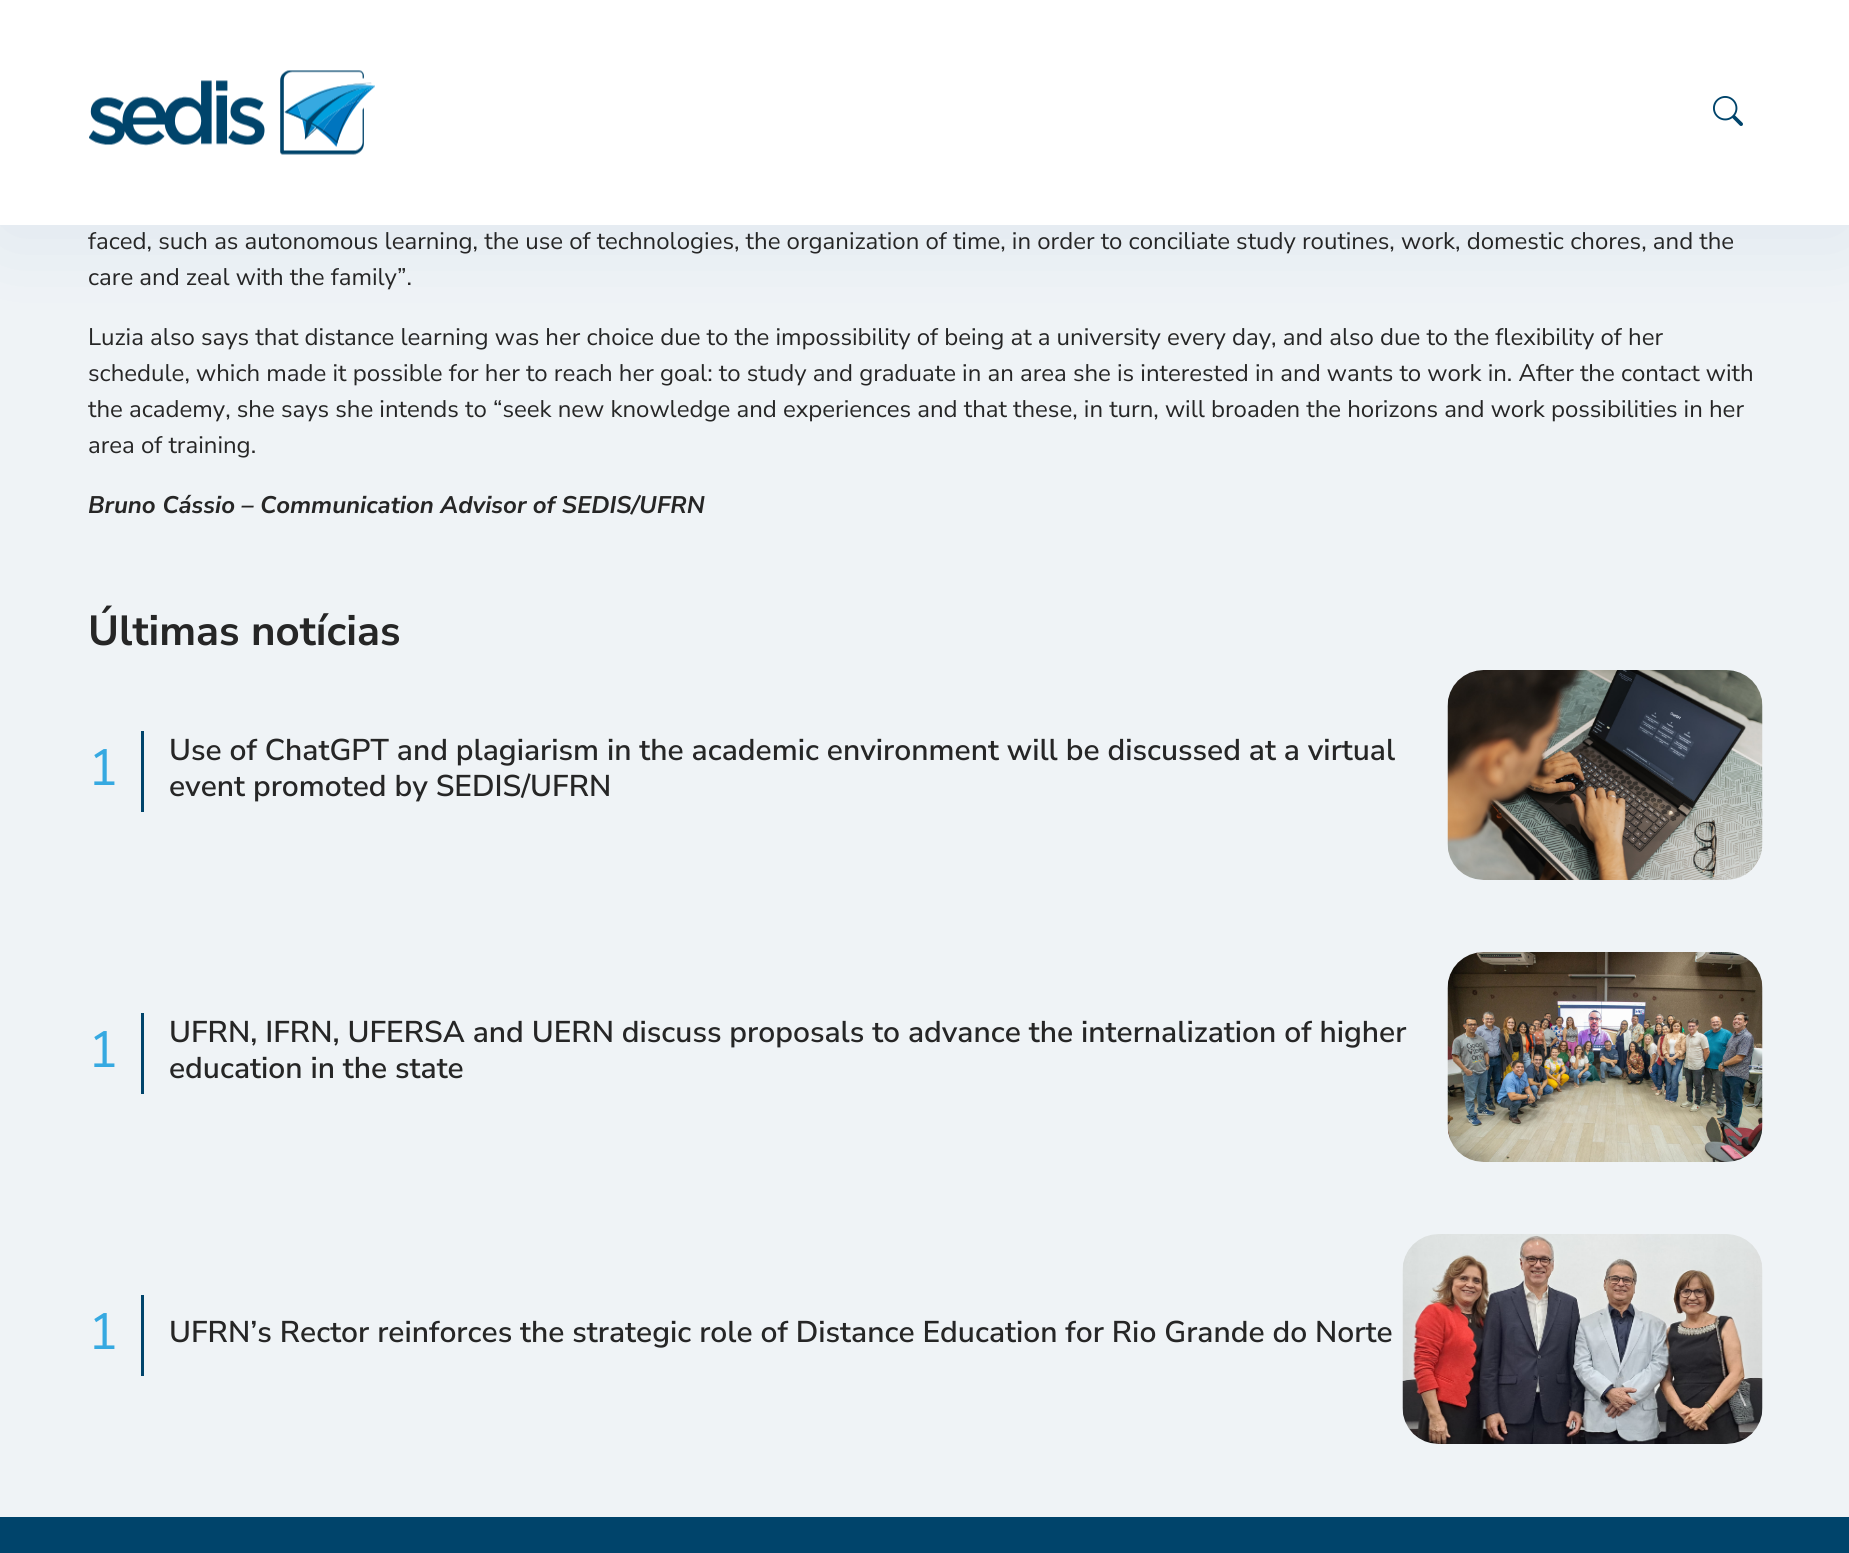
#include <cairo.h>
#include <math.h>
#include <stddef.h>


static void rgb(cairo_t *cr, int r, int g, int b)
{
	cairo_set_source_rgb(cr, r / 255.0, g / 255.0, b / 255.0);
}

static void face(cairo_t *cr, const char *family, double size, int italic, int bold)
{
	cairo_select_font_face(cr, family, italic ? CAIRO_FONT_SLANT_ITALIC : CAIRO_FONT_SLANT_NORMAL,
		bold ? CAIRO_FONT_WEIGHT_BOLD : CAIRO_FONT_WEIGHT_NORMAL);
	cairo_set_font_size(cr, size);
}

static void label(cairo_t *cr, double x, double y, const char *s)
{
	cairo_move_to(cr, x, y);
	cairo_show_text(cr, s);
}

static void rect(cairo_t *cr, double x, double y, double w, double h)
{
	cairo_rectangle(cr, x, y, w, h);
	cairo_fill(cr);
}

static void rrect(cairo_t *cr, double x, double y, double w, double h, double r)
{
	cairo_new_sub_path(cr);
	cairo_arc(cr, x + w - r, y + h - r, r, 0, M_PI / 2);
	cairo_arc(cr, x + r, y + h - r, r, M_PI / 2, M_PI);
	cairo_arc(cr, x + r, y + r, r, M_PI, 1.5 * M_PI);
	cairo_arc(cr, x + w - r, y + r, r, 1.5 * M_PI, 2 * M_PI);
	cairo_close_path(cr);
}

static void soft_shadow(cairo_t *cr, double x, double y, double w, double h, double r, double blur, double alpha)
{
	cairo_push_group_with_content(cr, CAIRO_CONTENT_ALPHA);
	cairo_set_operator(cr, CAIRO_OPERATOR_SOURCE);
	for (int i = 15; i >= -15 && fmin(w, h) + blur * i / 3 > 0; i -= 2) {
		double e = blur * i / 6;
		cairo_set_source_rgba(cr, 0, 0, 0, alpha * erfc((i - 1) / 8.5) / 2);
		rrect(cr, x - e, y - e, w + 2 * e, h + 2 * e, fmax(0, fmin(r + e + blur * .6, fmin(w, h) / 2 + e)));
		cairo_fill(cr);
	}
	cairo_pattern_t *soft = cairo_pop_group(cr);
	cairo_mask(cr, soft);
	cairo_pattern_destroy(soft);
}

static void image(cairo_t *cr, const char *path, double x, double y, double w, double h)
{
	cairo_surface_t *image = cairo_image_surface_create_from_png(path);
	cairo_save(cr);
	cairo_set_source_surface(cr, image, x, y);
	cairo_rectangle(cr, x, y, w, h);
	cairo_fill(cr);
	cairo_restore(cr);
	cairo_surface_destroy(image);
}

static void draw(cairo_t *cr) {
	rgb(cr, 239, 243, 246);
	cairo_paint(cr);
	rgb(cr, 0, 78, 141);
	soft_shadow(cr, 0, 6, 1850, 225, 0, 48, 0.08);
	rgb(cr, 255, 255, 255);
	rect(cr, 0, 0, 1849, 225);
	image(cr, "image0.png", 89, 70, 286, 85);
	image(cr, "image1.png", 1713, 96, 30, 30);
	face(cr, "Nunito Sans", 24, 0, 0);
	rgb(cr, 38, 38, 38);
	label(cr, 88, 249, "faced, such as autonomous learning, the use of technologies, the organization of time, in order to conciliate study routines, work, domestic chores, and the");
	label(cr, 88, 285, "care and zeal with the family”.");
	label(cr, 88, 345, "Luzia also says that distance learning was her choice due to the impossibility of being at a university every day, and also due to the flexibility of her");
	label(cr, 88, 381, "schedule, which made it possible for her to reach her goal: to study and graduate in an area she is interested in and wants to work in. After the contact with");
	label(cr, 88, 417, "the academy, she says she intends to “seek new knowledge and experiences and that these, in turn, will broaden the horizons and work possibilities in her");
	label(cr, 88, 453, "area of training.");
	face(cr, "Nunito Sans", 24, 1, 1);
	label(cr, 88, 513, "Bruno Cássio – Communication Advisor of SEDIS/UFRN");
	face(cr, "Nunito Sans", 42, 0, 1);
	label(cr, 88, 645, "Últimas notícias");
	face(cr, "Nunito Sans", 51, 0, 0);
	rgb(cr, 54, 169, 225);
	label(cr, 88, 785, "1");
	rgb(cr, 0, 68, 107);
	rect(cr, 141, 731, 3, 81);
	face(cr, "Nunito Sans SemiBold", 30, 0, 0);
	rgb(cr, 38, 38, 38);
	label(cr, 169, 760, "Use of ChatGPT and plagiarism in the academic environment will be discussed at a virtual");
	label(cr, 169, 796, "event promoted by SEDIS/UFRN");
	image(cr, "image2.png", 1447, 670, 316, 210);
	face(cr, "Nunito Sans", 51, 0, 0);
	rgb(cr, 54, 169, 225);
	label(cr, 88, 1067, "1");
	rgb(cr, 0, 68, 107);
	rect(cr, 141, 1013, 3, 81);
	face(cr, "Nunito Sans SemiBold", 30, 0, 0);
	rgb(cr, 38, 38, 38);
	label(cr, 169, 1042, "UFRN, IFRN, UFERSA and UERN discuss proposals to advance the internalization of higher");
	label(cr, 169, 1078, "education in the state");
	image(cr, "image3.png", 1447, 952, 316, 210);
	face(cr, "Nunito Sans", 51, 0, 0);
	rgb(cr, 54, 169, 225);
	label(cr, 88, 1349, "1");
	rgb(cr, 0, 68, 107);
	rect(cr, 141, 1295, 3, 81);
	face(cr, "Nunito Sans SemiBold", 30, 0, 0);
	rgb(cr, 38, 38, 38);
	label(cr, 169, 1342, "UFRN’s Rector reinforces the strategic role of Distance Education for Rio Grande do Norte");
	image(cr, "image4.png", 1402, 1234, 361, 210);
	rgb(cr, 0, 68, 107);
	rect(cr, 0, 1517, 1849, 36);
}

int main(void) {
	cairo_surface_t *surface = cairo_image_surface_create(CAIRO_FORMAT_RGB24, 1849, 1553);
	cairo_t *cr = cairo_create(surface);
	cairo_font_options_t *options = cairo_font_options_create();
	cairo_font_options_set_hint_metrics(options, CAIRO_HINT_METRICS_OFF);
	cairo_font_options_set_hint_style(options, CAIRO_HINT_STYLE_NONE);
	cairo_set_font_options(cr, options);
	cairo_set_miter_limit(cr, 4);
	draw(cr);
	cairo_surface_write_to_png(surface, "render.png");
	cairo_font_options_destroy(options);
	cairo_destroy(cr);
	cairo_surface_destroy(surface);
	return 0;
}
